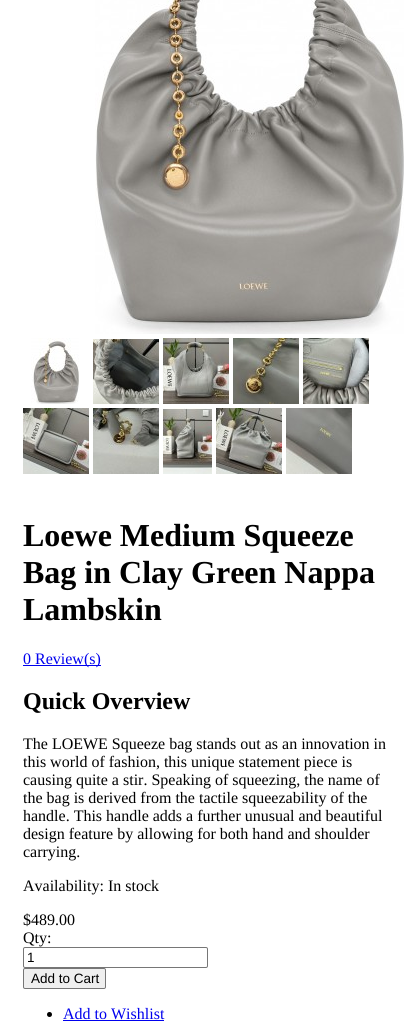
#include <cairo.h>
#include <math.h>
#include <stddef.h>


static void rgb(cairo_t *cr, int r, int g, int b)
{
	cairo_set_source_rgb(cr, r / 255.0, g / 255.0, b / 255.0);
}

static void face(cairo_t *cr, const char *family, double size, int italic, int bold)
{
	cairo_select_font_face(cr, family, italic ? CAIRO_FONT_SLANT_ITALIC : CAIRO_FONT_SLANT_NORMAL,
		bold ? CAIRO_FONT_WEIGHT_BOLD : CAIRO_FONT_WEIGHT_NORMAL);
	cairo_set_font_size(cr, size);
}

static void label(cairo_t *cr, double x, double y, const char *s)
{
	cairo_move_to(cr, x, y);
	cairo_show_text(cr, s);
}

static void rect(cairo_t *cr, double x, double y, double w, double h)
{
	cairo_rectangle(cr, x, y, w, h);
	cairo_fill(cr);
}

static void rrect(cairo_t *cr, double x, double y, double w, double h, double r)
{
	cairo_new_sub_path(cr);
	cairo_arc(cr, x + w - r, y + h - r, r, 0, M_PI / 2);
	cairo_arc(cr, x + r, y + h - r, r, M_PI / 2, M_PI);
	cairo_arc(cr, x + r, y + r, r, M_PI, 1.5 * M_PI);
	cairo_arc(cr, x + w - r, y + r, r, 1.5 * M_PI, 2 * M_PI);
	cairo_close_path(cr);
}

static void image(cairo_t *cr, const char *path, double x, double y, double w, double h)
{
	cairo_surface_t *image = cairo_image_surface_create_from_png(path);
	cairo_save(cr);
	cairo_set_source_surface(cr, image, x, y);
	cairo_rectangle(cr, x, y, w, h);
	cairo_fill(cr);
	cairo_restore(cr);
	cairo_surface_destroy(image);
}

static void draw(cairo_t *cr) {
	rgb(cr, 255, 255, 255);
	cairo_paint(cr);
	image(cr, "image0.png", 95, 0, 309, 334);
	image(cr, "image1.png", 31, 338, 48, 66);
	image(cr, "image2.png", 93, 339, 66, 65);
	image(cr, "image3.png", 163, 338, 66, 66);
	image(cr, "image4.png", 233, 338, 66, 66);
	image(cr, "image5.png", 303, 338, 66, 66);
	image(cr, "image6.png", 23, 408, 66, 66);
	image(cr, "image7.png", 93, 408, 66, 66);
	image(cr, "image8.png", 163, 408, 49, 66);
	image(cr, "image9.png", 216, 408, 66, 66);
	image(cr, "image10.png", 286, 408, 66, 66);
	face(cr, "Liberation Serif", 32, 0, 1);
	rgb(cr, 0, 0, 0);
	label(cr, 23, 546, "Loewe Medium Squeeze");
	label(cr, 23, 583, "Bag in Clay Green Nappa");
	label(cr, 23, 620, "Lambskin");
	rgb(cr, 0, 0, 238);
	rect(cr, 23, 665, 78, 1);
	face(cr, "Liberation Serif", 16, 0, 0);
	label(cr, 23, 664, "0 Review(s)");
	face(cr, "Liberation Serif", 24, 0, 1);
	rgb(cr, 0, 0, 0);
	label(cr, 23, 709, "Quick Overview");
	face(cr, "Liberation Serif", 16, 0, 0);
	label(cr, 23, 749, "The LOEWE Squeeze bag stands out as an innovation in");
	label(cr, 23, 767, "this world of fashion, this unique statement piece is");
	label(cr, 23, 785, "causing quite a stir. Speaking of squeezing, the name of");
	label(cr, 23, 803, "the bag is derived from the tactile squeezability of the");
	label(cr, 23, 821, "handle. This handle adds a further unusual and beautiful");
	label(cr, 23, 839, "design feature by allowing for both hand and shoulder");
	label(cr, 23, 857, "carrying.");
	label(cr, 23, 891, "Availability: In stock");
	label(cr, 23, 925, "$489.00");
	label(cr, 23, 943, "Qty:");
	rrect(cr, 23.5, 947.5, 184, 20, 1.5);
	rgb(cr, 118, 118, 118);
	cairo_set_line_width(cr, 1);
	cairo_stroke(cr);
	face(cr, "Liberation Sans", 13.5, 0, 0);
	rgb(cr, 0, 0, 0);
	label(cr, 27, 962, "1");
	rgb(cr, 239, 239, 239);
	rrect(cr, 23.5, 968.5, 82, 20, 1.5);
	cairo_fill_preserve(cr);
	rgb(cr, 118, 118, 118);
	cairo_stroke(cr);
	rgb(cr, 0, 0, 0);
	label(cr, 31, 983, "Add to Cart");
	cairo_new_path(cr);
	cairo_arc(cr, 49.5, 1014.5, 2.5, 0, 2 * M_PI);
	cairo_fill(cr);
	face(cr, "Liberation Serif", 16, 0, 0);
	rgb(cr, 0, 0, 238);
	label(cr, 63, 1019, "Add to Wishlist");
	rect(cr, 63, 1020, 101, 1);
}

int main(void) {
	cairo_surface_t *surface = cairo_image_surface_create(CAIRO_FORMAT_RGB24, 414, 1027);
	cairo_t *cr = cairo_create(surface);
	cairo_font_options_t *options = cairo_font_options_create();
	cairo_font_options_set_hint_metrics(options, CAIRO_HINT_METRICS_OFF);
	cairo_font_options_set_hint_style(options, CAIRO_HINT_STYLE_NONE);
	cairo_set_font_options(cr, options);
	cairo_set_miter_limit(cr, 4);
	draw(cr);
	cairo_surface_write_to_png(surface, "render.png");
	cairo_font_options_destroy(options);
	cairo_destroy(cr);
	cairo_surface_destroy(surface);
	return 0;
}
